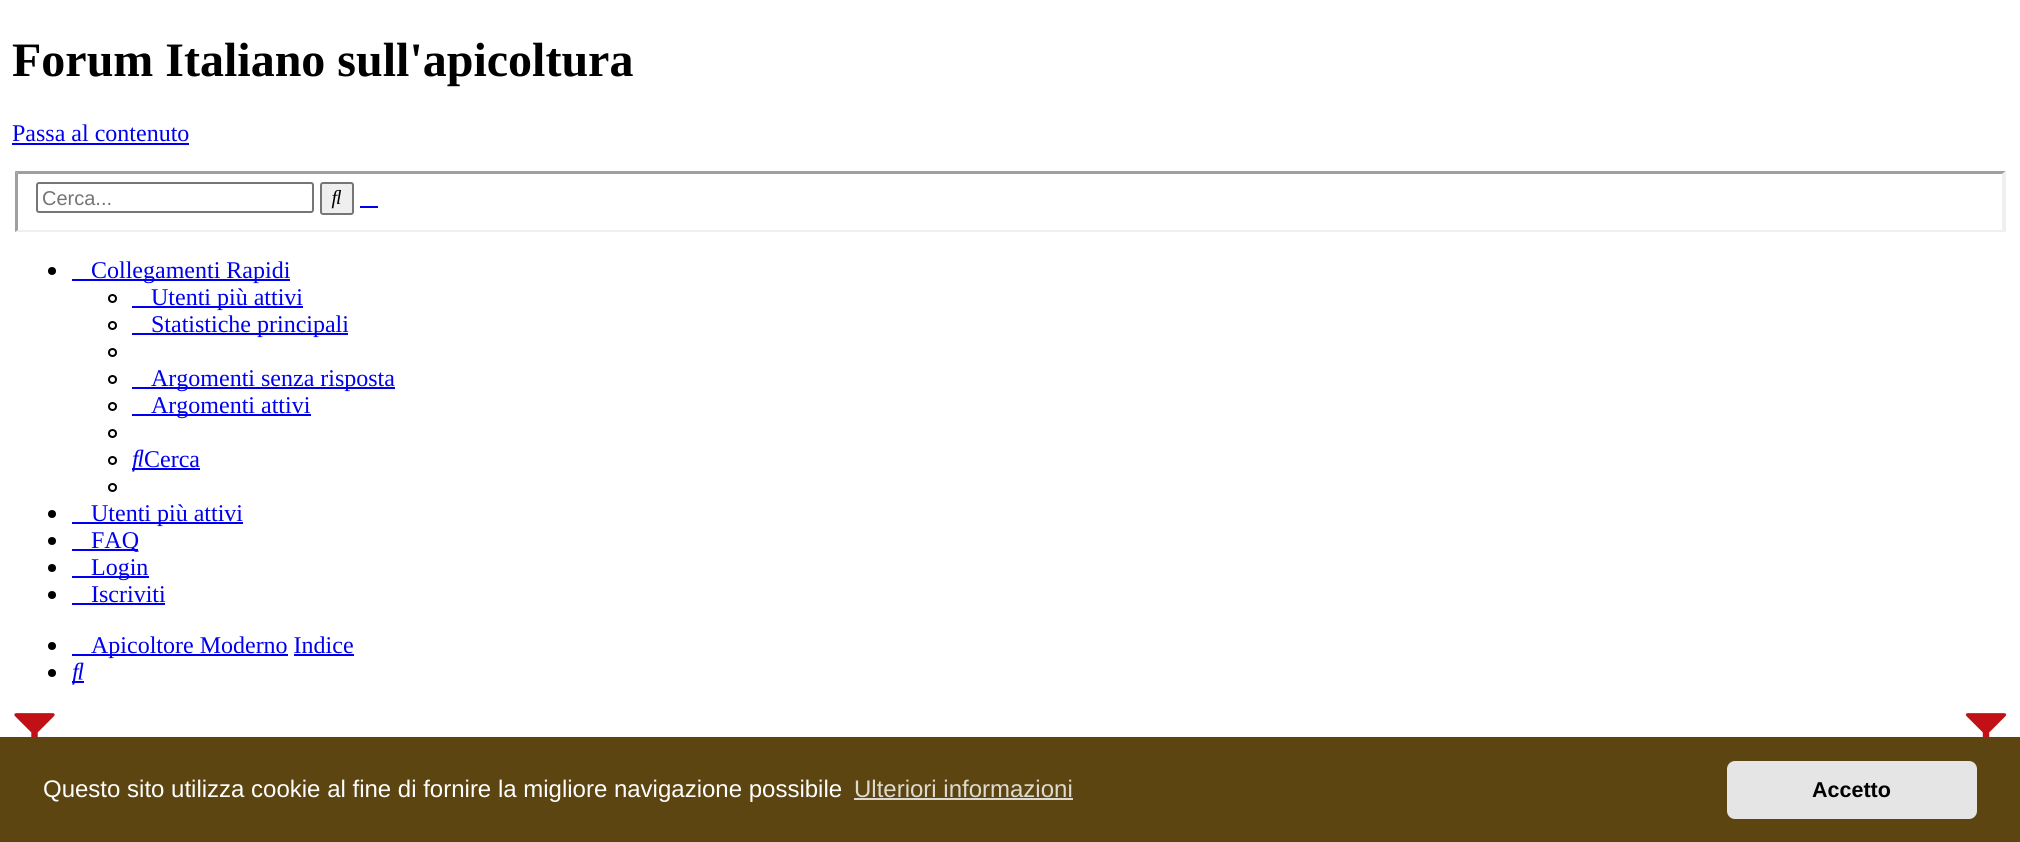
#include <cairo.h>
#include <math.h>
#include <stddef.h>


static void rgb(cairo_t *cr, int r, int g, int b)
{
	cairo_set_source_rgb(cr, r / 255.0, g / 255.0, b / 255.0);
}

static void face(cairo_t *cr, const char *family, double size, int italic, int bold)
{
	cairo_select_font_face(cr, family, italic ? CAIRO_FONT_SLANT_ITALIC : CAIRO_FONT_SLANT_NORMAL,
		bold ? CAIRO_FONT_WEIGHT_BOLD : CAIRO_FONT_WEIGHT_NORMAL);
	cairo_set_font_size(cr, size);
}

static void label(cairo_t *cr, double x, double y, const char *s)
{
	cairo_move_to(cr, x, y);
	cairo_show_text(cr, s);
}

static void rect(cairo_t *cr, double x, double y, double w, double h)
{
	cairo_rectangle(cr, x, y, w, h);
	cairo_fill(cr);
}

static void rrect(cairo_t *cr, double x, double y, double w, double h, double r)
{
	cairo_new_sub_path(cr);
	cairo_arc(cr, x + w - r, y + h - r, r, 0, M_PI / 2);
	cairo_arc(cr, x + r, y + h - r, r, M_PI / 2, M_PI);
	cairo_arc(cr, x + r, y + r, r, M_PI, 1.5 * M_PI);
	cairo_arc(cr, x + w - r, y + r, r, 1.5 * M_PI, 2 * M_PI);
	cairo_close_path(cr);
}

static void image(cairo_t *cr, const char *path, double x, double y, double w, double h)
{
	cairo_surface_t *image = cairo_image_surface_create_from_png(path);
	cairo_save(cr);
	cairo_set_source_surface(cr, image, x, y);
	cairo_rectangle(cr, x, y, w, h);
	cairo_fill(cr);
	cairo_restore(cr);
	cairo_surface_destroy(image);
}

static void draw(cairo_t *cr) {
	rgb(cr, 255, 255, 255);
	cairo_paint(cr);
	face(cr, "Liberation Serif", 48, 0, 1);
	rgb(cr, 0, 0, 0);
	label(cr, 12, 76, "Forum Italiano sull'apicoltura");
	face(cr, "Liberation Serif", 24, 0, 0);
	rgb(cr, 0, 0, 238);
	label(cr, 12, 141, "Passa al contenuto");
	rect(cr, 12, 143, 177, 2);
	rgb(cr, 159, 159, 159);
	cairo_new_path(cr);
	cairo_move_to(cr, 15, 171);
	cairo_line_to(cr, 2006, 171);
	cairo_line_to(cr, 2002, 174);
	cairo_line_to(cr, 18, 174);
	cairo_close_path(cr);
	cairo_fill(cr);
	rgb(cr, 239, 239, 239);
	cairo_new_path(cr);
	cairo_move_to(cr, 2006, 171);
	cairo_line_to(cr, 2006, 232);
	cairo_line_to(cr, 2002, 230);
	cairo_line_to(cr, 2002, 174);
	cairo_close_path(cr);
	cairo_fill(cr);
	cairo_new_path(cr);
	cairo_move_to(cr, 2006, 232);
	cairo_line_to(cr, 15, 232);
	cairo_line_to(cr, 18, 230);
	cairo_line_to(cr, 2002, 230);
	cairo_close_path(cr);
	cairo_fill(cr);
	rgb(cr, 159, 159, 159);
	cairo_new_path(cr);
	cairo_move_to(cr, 15, 232);
	cairo_line_to(cr, 15, 171);
	cairo_line_to(cr, 18, 174);
	cairo_line_to(cr, 18, 230);
	cairo_close_path(cr);
	cairo_fill(cr);
	rrect(cr, 37, 183, 276, 29, 2);
	rgb(cr, 118, 118, 118);
	cairo_stroke(cr);
	face(cr, "Liberation Sans", 20, 0, 0);
	rgb(cr, 117, 117, 117);
	label(cr, 42, 205, "Cerca...");
	rgb(cr, 239, 239, 239);
	rrect(cr, 321, 183, 32, 31, 2);
	cairo_fill_preserve(cr);
	rgb(cr, 118, 118, 118);
	cairo_stroke(cr);
	image(cr, "image0.png", 331, 189, 10, 20);
	rgb(cr, 0, 0, 238);
	rect(cr, 360, 206, 18, 2);
	rgb(cr, 0, 0, 0);
	cairo_arc(cr, 52, 271, 4, 0, 2 * M_PI);
	cairo_fill(cr);
	rgb(cr, 0, 0, 238);
	rect(cr, 72, 279, 218, 2);
	face(cr, "Liberation Serif", 24, 0, 0);
	label(cr, 91, 278, "Collegamenti Rapidi");
	cairo_new_path(cr);
	cairo_arc(cr, 112.5, 298.5, 3.5, 0, 2 * M_PI);
	rgb(cr, 0, 0, 0);
	cairo_stroke(cr);
	rgb(cr, 0, 0, 238);
	rect(cr, 132, 306, 171, 2);
	label(cr, 151, 305, "Utenti più attivi");
	cairo_new_path(cr);
	cairo_arc(cr, 112.5, 325.5, 3.5, 0, 2 * M_PI);
	rgb(cr, 0, 0, 0);
	cairo_stroke(cr);
	rgb(cr, 0, 0, 238);
	rect(cr, 132, 333, 216, 2);
	label(cr, 151, 332, "Statistiche principali");
	cairo_new_path(cr);
	cairo_arc(cr, 112.5, 352.5, 3.5, 0, 2 * M_PI);
	rgb(cr, 0, 0, 0);
	cairo_stroke(cr);
	cairo_arc(cr, 112.5, 379.5, 3.5, 0, 2 * M_PI);
	cairo_stroke(cr);
	rgb(cr, 0, 0, 238);
	rect(cr, 132, 387, 263, 2);
	label(cr, 151, 386, "Argomenti senza risposta");
	cairo_new_path(cr);
	cairo_arc(cr, 112.5, 406.5, 3.5, 0, 2 * M_PI);
	rgb(cr, 0, 0, 0);
	cairo_stroke(cr);
	rgb(cr, 0, 0, 238);
	rect(cr, 132, 414, 179, 2);
	label(cr, 151, 413, "Argomenti attivi");
	cairo_new_path(cr);
	cairo_arc(cr, 112.5, 433.5, 3.5, 0, 2 * M_PI);
	rgb(cr, 0, 0, 0);
	cairo_stroke(cr);
	cairo_arc(cr, 112.5, 460.5, 3.5, 0, 2 * M_PI);
	cairo_stroke(cr);
	rgb(cr, 0, 0, 238);
	rect(cr, 132, 468, 68, 2);
	image(cr, "image1.png", 132, 449, 12, 23);
	label(cr, 144, 467, "Cerca");
	cairo_new_path(cr);
	cairo_arc(cr, 112.5, 487.5, 3.5, 0, 2 * M_PI);
	rgb(cr, 0, 0, 0);
	cairo_stroke(cr);
	cairo_arc(cr, 52, 514, 4, 0, 2 * M_PI);
	cairo_fill(cr);
	rgb(cr, 0, 0, 238);
	rect(cr, 72, 522, 171, 2);
	label(cr, 91, 521, "Utenti più attivi");
	rgb(cr, 0, 0, 0);
	cairo_new_path(cr);
	cairo_arc(cr, 52, 541, 4, 0, 2 * M_PI);
	cairo_fill(cr);
	rgb(cr, 0, 0, 238);
	rect(cr, 72, 549, 66, 2);
	label(cr, 91, 548, "FAQ");
	rgb(cr, 0, 0, 0);
	cairo_new_path(cr);
	cairo_arc(cr, 52, 568, 4, 0, 2 * M_PI);
	cairo_fill(cr);
	rgb(cr, 0, 0, 238);
	rect(cr, 72, 576, 77, 2);
	label(cr, 91, 575, "Login");
	rgb(cr, 0, 0, 0);
	cairo_new_path(cr);
	cairo_arc(cr, 52, 595, 4, 0, 2 * M_PI);
	cairo_fill(cr);
	rgb(cr, 0, 0, 238);
	label(cr, 91, 602, "Iscriviti");
	rect(cr, 72, 603, 93, 2);
	rgb(cr, 0, 0, 0);
	cairo_new_path(cr);
	cairo_arc(cr, 52, 646, 4, 0, 2 * M_PI);
	cairo_fill(cr);
	rgb(cr, 0, 0, 238);
	rect(cr, 72, 654, 216, 2);
	label(cr, 91, 653, "Apicoltore Moderno Indice");
	rect(cr, 294, 654, 60, 2);
	rgb(cr, 0, 0, 0);
	cairo_new_path(cr);
	cairo_arc(cr, 52, 673, 4, 0, 2 * M_PI);
	cairo_fill(cr);
	rgb(cr, 0, 0, 238);
	rect(cr, 72, 681, 12, 2);
	image(cr, "image1.png", 72, 662, 12, 23);
	image(cr, "image2.png", 14, 713, 41, 24);
	image(cr, "image3.png", 1965, 713, 42, 24);
	rgb(cr, 92, 69, 17);
	rect(cr, 0, 737, 2020, 105);
	face(cr, "Liberation Sans", 24, 0, 0);
	rgb(cr, 255, 255, 255);
	label(cr, 43, 797, "Questo sito utilizza cookie al fine di fornire la migliore navigazione possibile");
	rgb(cr, 222, 218, 207);
	label(cr, 854, 797, "Ulteriori informazioni");
	rect(cr, 854, 798, 219, 2);
	rgb(cr, 229, 229, 229);
	rrect(cr, 1727, 761, 250, 58, 8);
	cairo_fill(cr);
	face(cr, "Liberation Sans", 21.5, 0, 1);
	rgb(cr, 0, 0, 0);
	label(cr, 1812, 797, "Accetto");
}

int main(void) {
	cairo_surface_t *surface = cairo_image_surface_create(CAIRO_FORMAT_RGB24, 2020, 842);
	cairo_t *cr = cairo_create(surface);
	cairo_font_options_t *options = cairo_font_options_create();
	cairo_font_options_set_hint_metrics(options, CAIRO_HINT_METRICS_OFF);
	cairo_font_options_set_hint_style(options, CAIRO_HINT_STYLE_NONE);
	cairo_set_font_options(cr, options);
	cairo_set_miter_limit(cr, 4);
	draw(cr);
	cairo_surface_write_to_png(surface, "render.png");
	cairo_font_options_destroy(options);
	cairo_destroy(cr);
	cairo_surface_destroy(surface);
	return 0;
}
